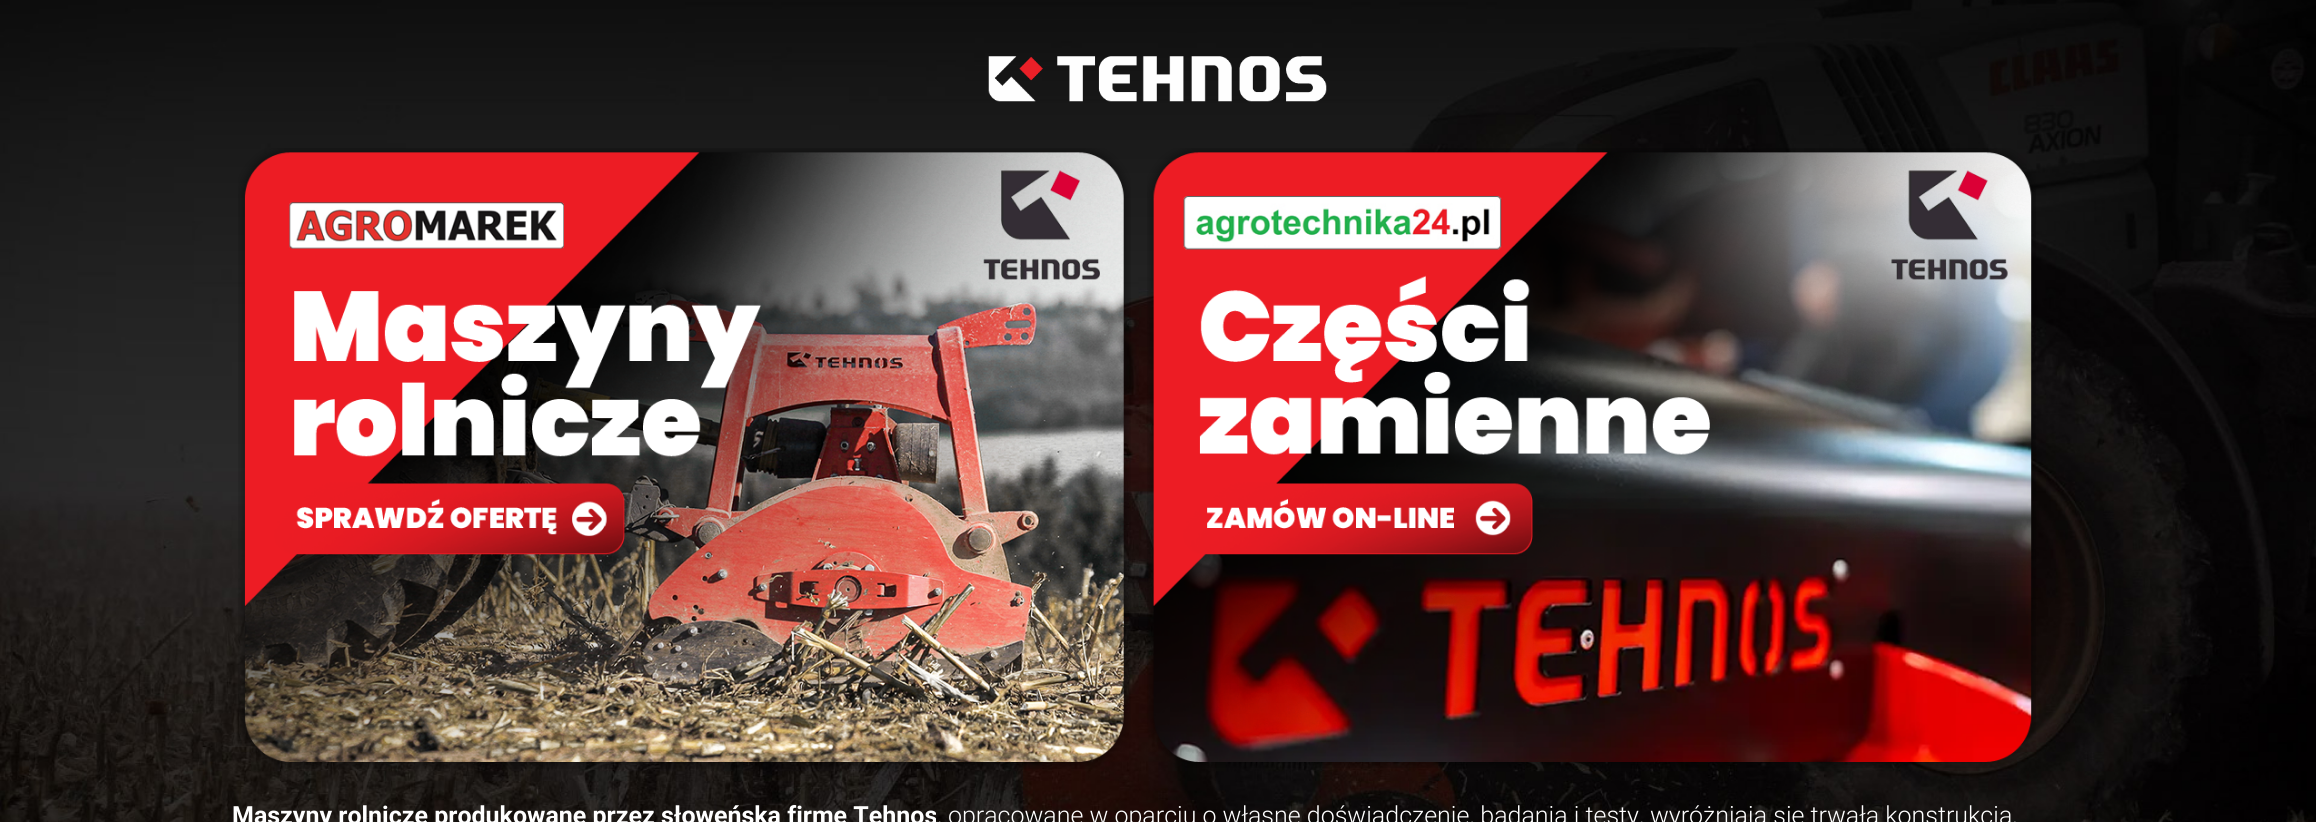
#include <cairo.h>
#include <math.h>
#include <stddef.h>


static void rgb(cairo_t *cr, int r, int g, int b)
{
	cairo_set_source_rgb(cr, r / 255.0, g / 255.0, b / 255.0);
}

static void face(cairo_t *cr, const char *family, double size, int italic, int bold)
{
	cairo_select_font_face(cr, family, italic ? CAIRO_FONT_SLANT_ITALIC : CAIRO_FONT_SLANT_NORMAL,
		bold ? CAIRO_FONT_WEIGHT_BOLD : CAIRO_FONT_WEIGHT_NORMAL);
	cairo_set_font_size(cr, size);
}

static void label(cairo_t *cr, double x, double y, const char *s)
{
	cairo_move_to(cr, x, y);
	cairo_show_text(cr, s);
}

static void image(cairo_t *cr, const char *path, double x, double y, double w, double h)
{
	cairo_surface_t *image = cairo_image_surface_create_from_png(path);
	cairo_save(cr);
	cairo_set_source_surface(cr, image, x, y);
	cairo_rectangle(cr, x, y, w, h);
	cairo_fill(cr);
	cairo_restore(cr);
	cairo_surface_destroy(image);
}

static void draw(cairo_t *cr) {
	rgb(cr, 255, 255, 255);
	cairo_paint(cr);
	image(cr, "image0.png", 0, 0, 2316, 822);
	image(cr, "image1.png", 988, 56, 339, 46);
	image(cr, "image2.png", 238, 148, 893, 621);
	image(cr, "image3.png", 1147, 148, 889, 620);
	face(cr, "Roboto", 25, 0, 1);
	rgb(cr, 255, 255, 255);
	label(cr, 232, 824, "Maszyny rolnicze produkowane przez słoweńską firmę Tehnos");
	face(cr, "Roboto Light", 25, 0, 0);
	label(cr, 937, 824, ", opracowane w oparciu o własne doświadczenie, badania i testy, wyróżniają się trwałą konstrukcją,");
}

int main(void) {
	cairo_surface_t *surface = cairo_image_surface_create(CAIRO_FORMAT_RGB24, 2316, 822);
	cairo_t *cr = cairo_create(surface);
	cairo_font_options_t *options = cairo_font_options_create();
	cairo_font_options_set_hint_metrics(options, CAIRO_HINT_METRICS_OFF);
	cairo_font_options_set_hint_style(options, CAIRO_HINT_STYLE_NONE);
	cairo_set_font_options(cr, options);
	cairo_set_miter_limit(cr, 4);
	draw(cr);
	cairo_surface_write_to_png(surface, "render.png");
	cairo_font_options_destroy(options);
	cairo_destroy(cr);
	cairo_surface_destroy(surface);
	return 0;
}
